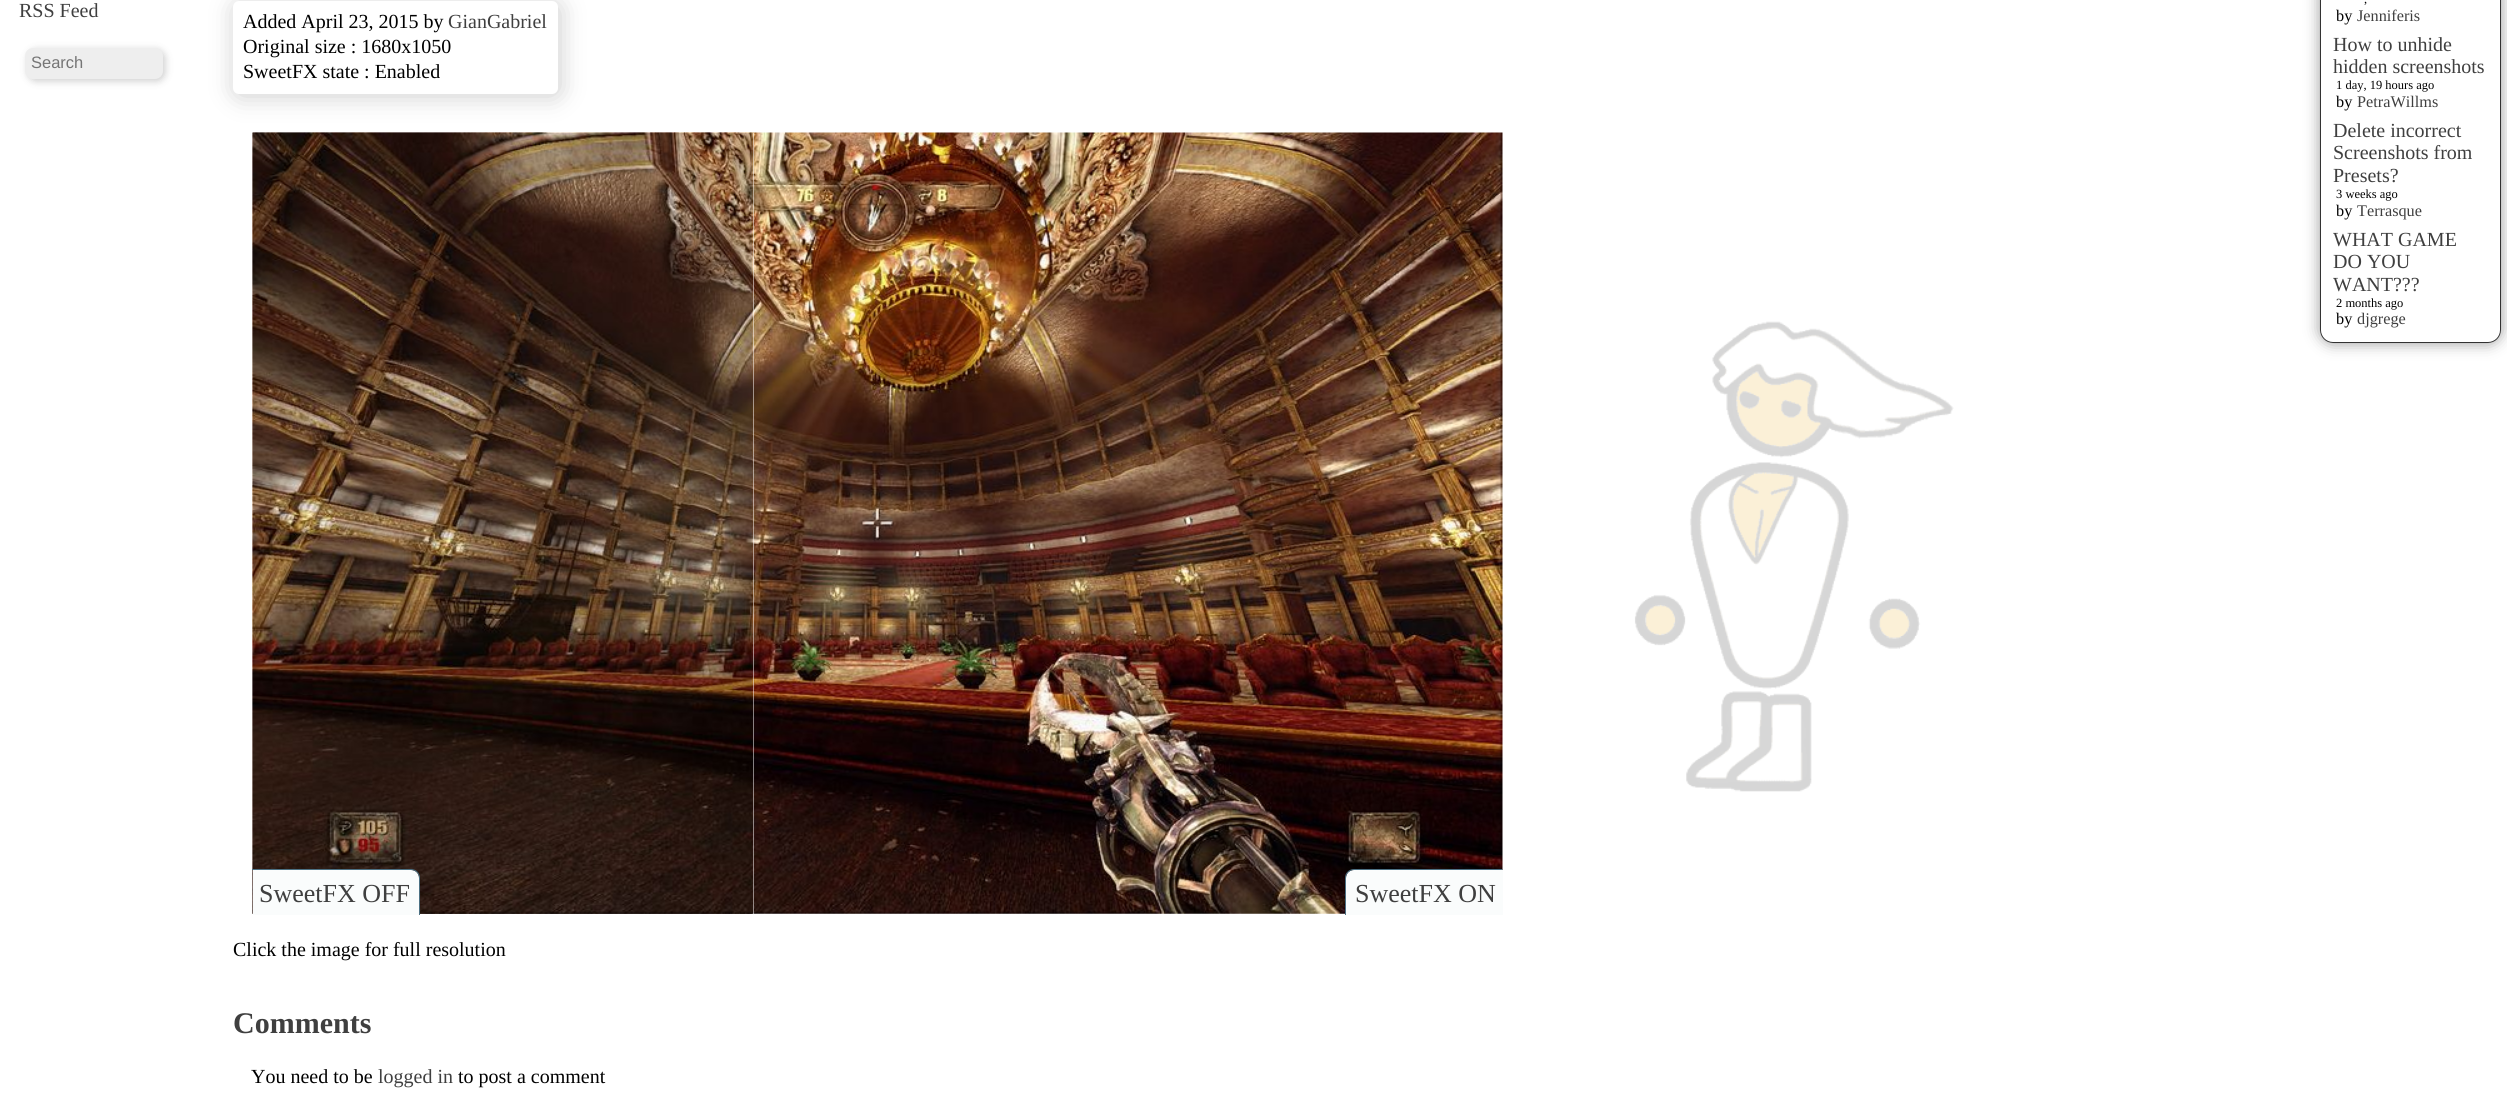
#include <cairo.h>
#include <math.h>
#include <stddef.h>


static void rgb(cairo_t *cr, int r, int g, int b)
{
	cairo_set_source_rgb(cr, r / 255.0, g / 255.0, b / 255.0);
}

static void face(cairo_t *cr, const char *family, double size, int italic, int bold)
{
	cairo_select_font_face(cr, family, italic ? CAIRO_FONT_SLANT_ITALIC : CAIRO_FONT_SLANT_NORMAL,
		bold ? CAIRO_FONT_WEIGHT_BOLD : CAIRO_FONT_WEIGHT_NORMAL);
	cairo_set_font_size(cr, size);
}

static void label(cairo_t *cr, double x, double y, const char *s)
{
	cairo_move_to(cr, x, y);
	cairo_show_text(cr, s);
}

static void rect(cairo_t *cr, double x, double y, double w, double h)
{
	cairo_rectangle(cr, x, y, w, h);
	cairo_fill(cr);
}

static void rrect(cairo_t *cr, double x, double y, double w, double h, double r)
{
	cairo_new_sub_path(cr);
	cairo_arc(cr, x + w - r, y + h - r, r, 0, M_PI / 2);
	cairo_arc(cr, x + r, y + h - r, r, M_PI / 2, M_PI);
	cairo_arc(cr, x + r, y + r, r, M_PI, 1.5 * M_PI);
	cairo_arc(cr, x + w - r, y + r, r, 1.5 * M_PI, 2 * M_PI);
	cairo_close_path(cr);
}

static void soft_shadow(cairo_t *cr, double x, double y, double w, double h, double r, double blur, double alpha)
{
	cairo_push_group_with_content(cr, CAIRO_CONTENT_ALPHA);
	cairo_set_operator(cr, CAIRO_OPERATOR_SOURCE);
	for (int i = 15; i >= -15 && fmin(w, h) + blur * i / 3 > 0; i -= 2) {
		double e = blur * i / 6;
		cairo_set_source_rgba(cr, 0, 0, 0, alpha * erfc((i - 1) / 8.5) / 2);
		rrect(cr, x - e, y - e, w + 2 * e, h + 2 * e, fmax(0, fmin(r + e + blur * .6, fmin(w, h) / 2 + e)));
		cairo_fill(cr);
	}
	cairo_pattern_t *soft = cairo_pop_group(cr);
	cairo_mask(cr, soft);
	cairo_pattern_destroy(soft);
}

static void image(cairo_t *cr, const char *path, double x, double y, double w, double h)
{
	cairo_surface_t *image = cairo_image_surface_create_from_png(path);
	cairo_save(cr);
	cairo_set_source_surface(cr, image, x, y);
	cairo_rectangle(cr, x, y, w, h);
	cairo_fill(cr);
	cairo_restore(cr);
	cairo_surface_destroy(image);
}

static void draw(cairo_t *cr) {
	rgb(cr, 255, 255, 255);
	cairo_paint(cr);
	image(cr, "image0.png", 1634, 321, 320, 471);
	face(cr, "Liberation Serif", 20, 0, 0);
	rgb(cr, 63, 63, 63);
	label(cr, 19, 17, "RSS Feed");
	rgb(cr, 50, 50, 50);
	soft_shadow(cr, 28, 50, 137, 31, 8, 4, 0.25);
	rgb(cr, 238, 238, 238);
	rrect(cr, 25, 48, 138, 31, 8);
	cairo_fill(cr);
	face(cr, "Liberation Sans", 16.5, 0, 0);
	rgb(cr, 117, 117, 117);
	label(cr, 31, 68, "Search");
	rgb(cr, 182, 182, 182);
	soft_shadow(cr, 235, 4, 325, 92, 6, 12.5, 0.68);
	rgb(cr, 255, 255, 255);
	rrect(cr, 233, 1, 325, 93, 6);
	cairo_fill(cr);
	face(cr, "Liberation Serif", 20, 0, 0);
	rgb(cr, 0, 0, 0);
	label(cr, 243, 28, "Added April 23, 2015 by");
	rgb(cr, 63, 63, 63);
	label(cr, 448, 28, "GianGabriel");
	rgb(cr, 0, 0, 0);
	label(cr, 243, 53, "Original size : 1680x1050");
	label(cr, 243, 78, "SweetFX state : Enabled");
	image(cr, "image1.png", 252, 132, 1251, 782);
	cairo_set_source_rgba(cr, 1, 1, 1, 0.5);
	rect(cr, 753, 133, 1, 786);
	image(cr, "image2.png", 252, 132, 501, 782);
	rgb(cr, 250, 252, 252);
	cairo_new_path(cr);
	cairo_move_to(cr, 253, 870);
	cairo_line_to(cr, 411, 870);
	cairo_curve_to(cr, 415.5, 870, 419, 873.5, 419, 878);
	cairo_line_to(cr, 419, 915);
	cairo_line_to(cr, 253, 915);
	cairo_close_path(cr);
	cairo_fill(cr);
	rgb(cr, 76, 112, 131);
	cairo_set_fill_rule(cr, CAIRO_FILL_RULE_EVEN_ODD);
	cairo_new_path(cr);
	cairo_move_to(cr, 252, 869);
	cairo_line_to(cr, 411, 869);
	cairo_curve_to(cr, 416, 869, 420, 873, 420, 878);
	cairo_line_to(cr, 420, 915);
	cairo_line_to(cr, 252, 915);
	cairo_close_path(cr);
	cairo_move_to(cr, 252, 870);
	cairo_line_to(cr, 411, 870);
	cairo_curve_to(cr, 415, 870, 419, 873, 419, 878);
	cairo_line_to(cr, 419, 915);
	cairo_line_to(cr, 252, 915);
	cairo_close_path(cr);
	cairo_fill(cr);
	face(cr, "Liberation Serif", 26, 0, 0);
	rgb(cr, 63, 63, 63);
	label(cr, 259, 902, "SweetFX OFF");
	rgb(cr, 250, 252, 252);
	cairo_new_path(cr);
	cairo_move_to(cr, 1354, 870);
	cairo_line_to(cr, 1503, 870);
	cairo_line_to(cr, 1503, 915);
	cairo_line_to(cr, 1346, 915);
	cairo_line_to(cr, 1346, 878);
	cairo_curve_to(cr, 1346, 873.5, 1349.5, 870, 1354, 870);
	cairo_close_path(cr);
	cairo_fill(cr);
	rgb(cr, 76, 112, 131);
	cairo_new_path(cr);
	cairo_move_to(cr, 1354, 869);
	cairo_line_to(cr, 1502, 869);
	cairo_line_to(cr, 1502, 915);
	cairo_line_to(cr, 1345, 915);
	cairo_line_to(cr, 1345, 878);
	cairo_curve_to(cr, 1345, 873, 1349, 869, 1354, 869);
	cairo_close_path(cr);
	cairo_move_to(cr, 1354, 870);
	cairo_line_to(cr, 1502, 870);
	cairo_line_to(cr, 1502, 915);
	cairo_line_to(cr, 1346, 915);
	cairo_line_to(cr, 1346, 878);
	cairo_curve_to(cr, 1346, 873, 1350, 870, 1354, 870);
	cairo_close_path(cr);
	cairo_fill(cr);
	rgb(cr, 63, 63, 63);
	label(cr, 1355, 902, "SweetFX ON");
	face(cr, "Liberation Serif", 20, 0, 0);
	rgb(cr, 0, 0, 0);
	label(cr, 233, 956, "Click the image for full resolution");
	face(cr, "Liberation Serif", 30, 0, 1);
	rgb(cr, 63, 63, 63);
	label(cr, 233, 1033, "Comments");
	face(cr, "Liberation Serif", 20, 0, 0);
	rgb(cr, 0, 0, 0);
	label(cr, 251, 1083, "You need to be");
	rgb(cr, 63, 63, 63);
	label(cr, 378, 1083, "logged in");
	rgb(cr, 0, 0, 0);
	label(cr, 458, 1083, "to post a comment");
	cairo_save(cr);
	cairo_new_path(cr);
	cairo_move_to(cr, 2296, 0);
	cairo_line_to(cr, 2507, 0);
	cairo_line_to(cr, 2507, 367);
	cairo_line_to(cr, 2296, 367);
	cairo_close_path(cr);
	cairo_move_to(cr, 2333, -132);
	cairo_line_to(cr, 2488, -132);
	cairo_curve_to(cr, 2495, -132, 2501, -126, 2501, -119);
	cairo_line_to(cr, 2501, 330);
	cairo_curve_to(cr, 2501, 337, 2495, 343, 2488, 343);
	cairo_line_to(cr, 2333, 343);
	cairo_curve_to(cr, 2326, 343, 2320, 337, 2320, 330);
	cairo_line_to(cr, 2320, -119);
	cairo_curve_to(cr, 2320, -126, 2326, -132, 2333, -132);
	cairo_close_path(cr);
	cairo_clip(cr);
	rgb(cr, 153, 153, 153);
	soft_shadow(cr, 2320, -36, 181, 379, 13, 7.5, 1);
	cairo_restore(cr);
	rrect(cr, 2320.5, -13.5, 180, 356, 12.5);
	rgb(cr, 51, 51, 51);
	cairo_set_line_width(cr, 1);
	cairo_stroke(cr);
	face(cr, "Liberation Serif", 12.5, 0, 0);
	rgb(cr, 0, 0, 0);
	label(cr, 2364, 3, ",");
	face(cr, "Liberation Serif", 16.25, 0, 0);
	label(cr, 2336, 21, "by");
	rgb(cr, 63, 63, 63);
	label(cr, 2357, 21, "Jenniferis");
	face(cr, "Liberation Serif", 20, 0, 0);
	label(cr, 2333, 51, "How to unhide");
	label(cr, 2333, 73, "hidden screenshots");
	face(cr, "Liberation Serif", 12.5, 0, 0);
	rgb(cr, 0, 0, 0);
	label(cr, 2336, 89, "1 day, 19 hours ago");
	face(cr, "Liberation Serif", 16.25, 0, 0);
	label(cr, 2336, 107, "by");
	rgb(cr, 63, 63, 63);
	label(cr, 2357, 107, "PetraWillms");
	face(cr, "Liberation Serif", 20, 0, 0);
	label(cr, 2333, 137, "Delete incorrect");
	label(cr, 2333, 159, "Screenshots from");
	label(cr, 2333, 182, "Presets?");
	face(cr, "Liberation Serif", 12.5, 0, 0);
	rgb(cr, 0, 0, 0);
	label(cr, 2336, 198, "3 weeks ago");
	face(cr, "Liberation Serif", 16.25, 0, 0);
	label(cr, 2336, 216, "by");
	rgb(cr, 63, 63, 63);
	label(cr, 2357, 216, "Terrasque");
	face(cr, "Liberation Serif", 20, 0, 0);
	label(cr, 2333, 246, "WHAT GAME");
	label(cr, 2333, 268, "DO YOU");
	label(cr, 2333, 291, "WANT?\077?");
	face(cr, "Liberation Serif", 12.5, 0, 0);
	rgb(cr, 0, 0, 0);
	label(cr, 2336, 307, "2 months ago");
	face(cr, "Liberation Serif", 16.25, 0, 0);
	label(cr, 2336, 324, "by");
	rgb(cr, 63, 63, 63);
	label(cr, 2357, 324, "djgrege");
}

int main(void) {
	cairo_surface_t *surface = cairo_image_surface_create(CAIRO_FORMAT_RGB24, 2507, 1115);
	cairo_t *cr = cairo_create(surface);
	cairo_font_options_t *options = cairo_font_options_create();
	cairo_font_options_set_hint_metrics(options, CAIRO_HINT_METRICS_OFF);
	cairo_font_options_set_hint_style(options, CAIRO_HINT_STYLE_NONE);
	cairo_set_font_options(cr, options);
	cairo_set_miter_limit(cr, 4);
	draw(cr);
	cairo_surface_write_to_png(surface, "render.png");
	cairo_font_options_destroy(options);
	cairo_destroy(cr);
	cairo_surface_destroy(surface);
	return 0;
}
